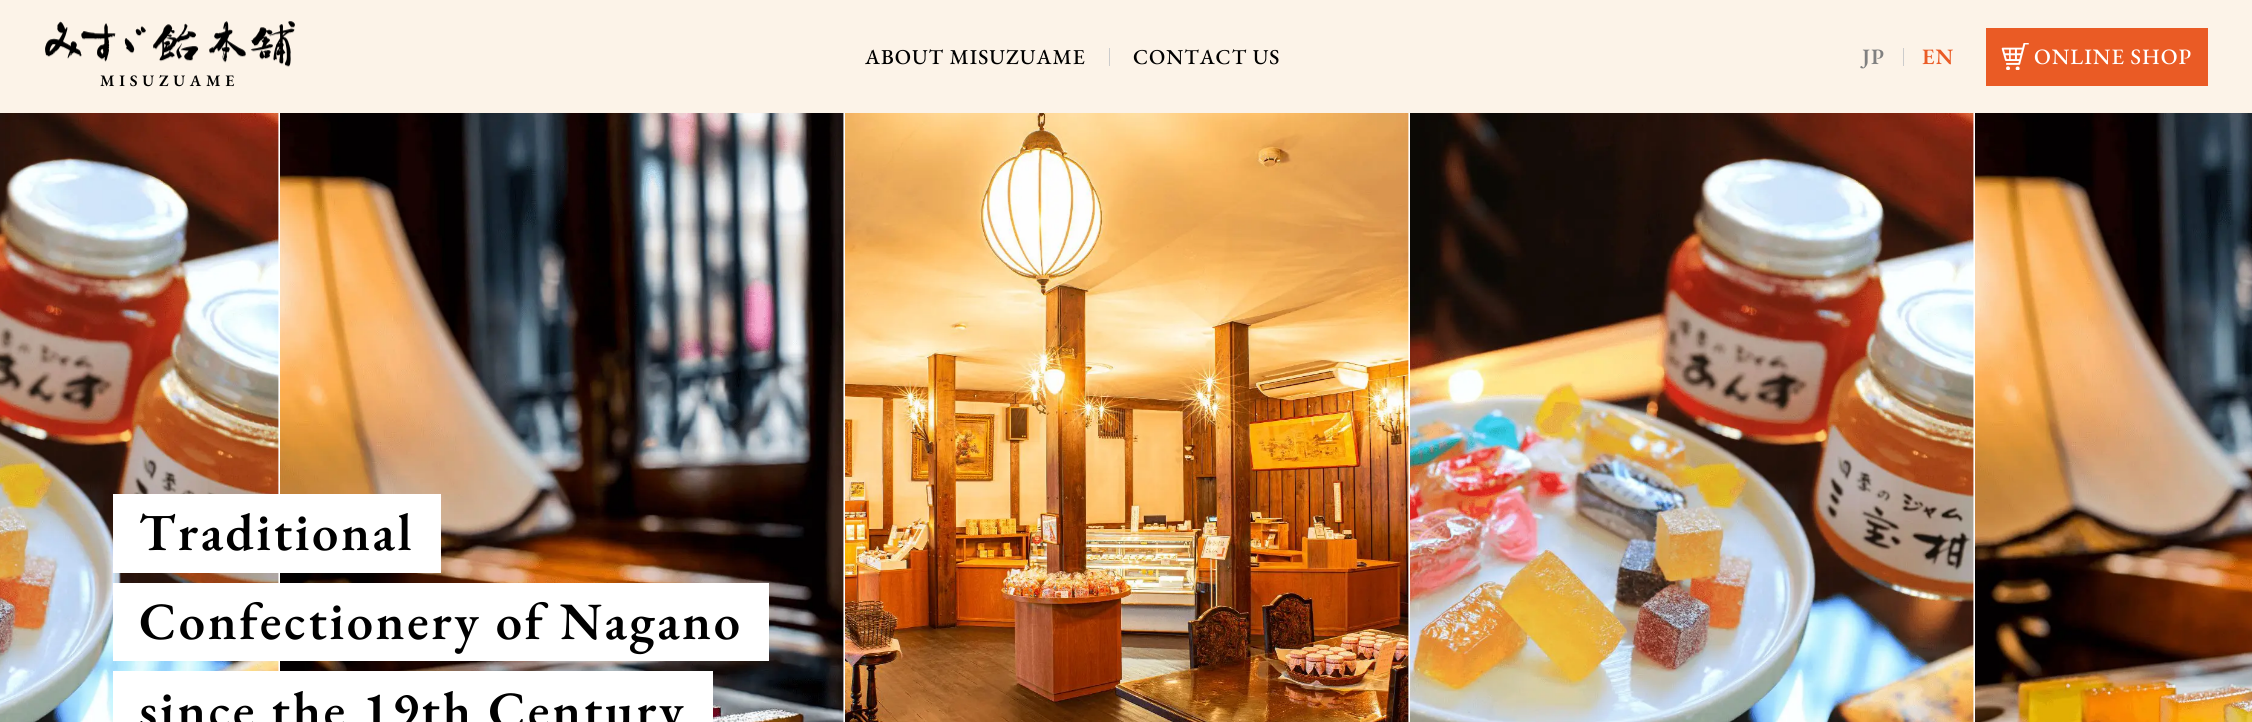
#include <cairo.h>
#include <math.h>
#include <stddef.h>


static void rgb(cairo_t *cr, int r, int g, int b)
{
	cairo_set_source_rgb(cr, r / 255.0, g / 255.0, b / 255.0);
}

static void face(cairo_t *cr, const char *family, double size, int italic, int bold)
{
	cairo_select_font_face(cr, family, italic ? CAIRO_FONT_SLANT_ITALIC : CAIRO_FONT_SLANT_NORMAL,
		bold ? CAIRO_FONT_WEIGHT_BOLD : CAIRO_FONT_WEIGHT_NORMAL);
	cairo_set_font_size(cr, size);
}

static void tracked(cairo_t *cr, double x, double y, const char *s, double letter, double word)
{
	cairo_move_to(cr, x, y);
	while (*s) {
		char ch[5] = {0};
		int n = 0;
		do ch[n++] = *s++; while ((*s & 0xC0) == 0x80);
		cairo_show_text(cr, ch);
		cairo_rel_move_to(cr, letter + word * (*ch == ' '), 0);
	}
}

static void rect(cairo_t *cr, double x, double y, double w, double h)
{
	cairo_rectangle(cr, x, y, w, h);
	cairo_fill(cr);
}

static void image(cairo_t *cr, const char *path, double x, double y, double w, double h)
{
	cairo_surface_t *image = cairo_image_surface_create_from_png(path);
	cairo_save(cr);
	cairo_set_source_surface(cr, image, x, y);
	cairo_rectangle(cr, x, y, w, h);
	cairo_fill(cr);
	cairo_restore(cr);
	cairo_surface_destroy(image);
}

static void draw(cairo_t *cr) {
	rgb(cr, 255, 255, 255);
	cairo_paint(cr);
	rgb(cr, 252, 243, 232);
	rect(cr, 0, 0, 2252, 113);
	face(cr, "EB Garamond Medium", 21.25, 0, 0);
	rgb(cr, 0, 0, 0);
	tracked(cr, 865, 64, "ABOUT MISUZUAME", 1, 0);
	rgb(cr, 204, 204, 204);
	rect(cr, 1109, 48, 1, 18);
	rgb(cr, 0, 0, 0);
	tracked(cr, 1133, 64, "CONTACT US", 1, 0);
	face(cr, "EB Garamond SemiBold", 22, 0, 0);
	rgb(cr, 128, 128, 128);
	tracked(cr, 1862, 64, "JP", 1, 0);
	rgb(cr, 204, 204, 204);
	rect(cr, 1903, 48, 1, 18);
	rgb(cr, 234, 91, 37);
	tracked(cr, 1922, 64, "EN", 1, 0);
	rect(cr, 1986, 28, 222, 58);
	image(cr, "image0.png", 2001, 43, 28, 27);
	face(cr, "EB Garamond Medium", 22, 0, 0);
	rgb(cr, 255, 255, 255);
	tracked(cr, 2034, 64, "ONLINE SHOP", 1, 0);
	image(cr, "image1.png", 45, 21, 250, 46);
	face(cr, "EB Garamond SemiBold", 16, 0, 0);
	rgb(cr, 0, 0, 0);
	tracked(cr, 100, 86, "MISUZUAME", 4.75, 0);
	image(cr, "image2.png", 0, 113, 279, 609);
	image(cr, "image3.png", 280, 113, 564, 609);
	image(cr, "image4.png", 845, 113, 564, 609);
	image(cr, "image5.png", 1410, 113, 564, 609);
	image(cr, "image6.png", 1975, 113, 277, 609);
	rgb(cr, 255, 255, 255);
	rect(cr, 113, 494, 328, 79);
	face(cr, "EB Garamond SemiBold", 52.5, 0, 0);
	rgb(cr, 0, 0, 0);
	tracked(cr, 139, 550, "Traditional", 2.6, 0);
	rgb(cr, 255, 255, 255);
	rect(cr, 113, 583, 656, 78);
	rgb(cr, 0, 0, 0);
	tracked(cr, 139, 639, "Confectionery of Nagano", 2.6, 0);
	rgb(cr, 255, 255, 255);
	rect(cr, 113, 671, 600, 51);
	rgb(cr, 0, 0, 0);
	tracked(cr, 139, 728, "since the 19th Century", 2.6, 0);
}

int main(void) {
	cairo_surface_t *surface = cairo_image_surface_create(CAIRO_FORMAT_RGB24, 2252, 722);
	cairo_t *cr = cairo_create(surface);
	cairo_font_options_t *options = cairo_font_options_create();
	cairo_font_options_set_hint_metrics(options, CAIRO_HINT_METRICS_OFF);
	cairo_font_options_set_hint_style(options, CAIRO_HINT_STYLE_NONE);
	cairo_set_font_options(cr, options);
	cairo_set_miter_limit(cr, 4);
	draw(cr);
	cairo_surface_write_to_png(surface, "render.png");
	cairo_font_options_destroy(options);
	cairo_destroy(cr);
	cairo_surface_destroy(surface);
	return 0;
}
